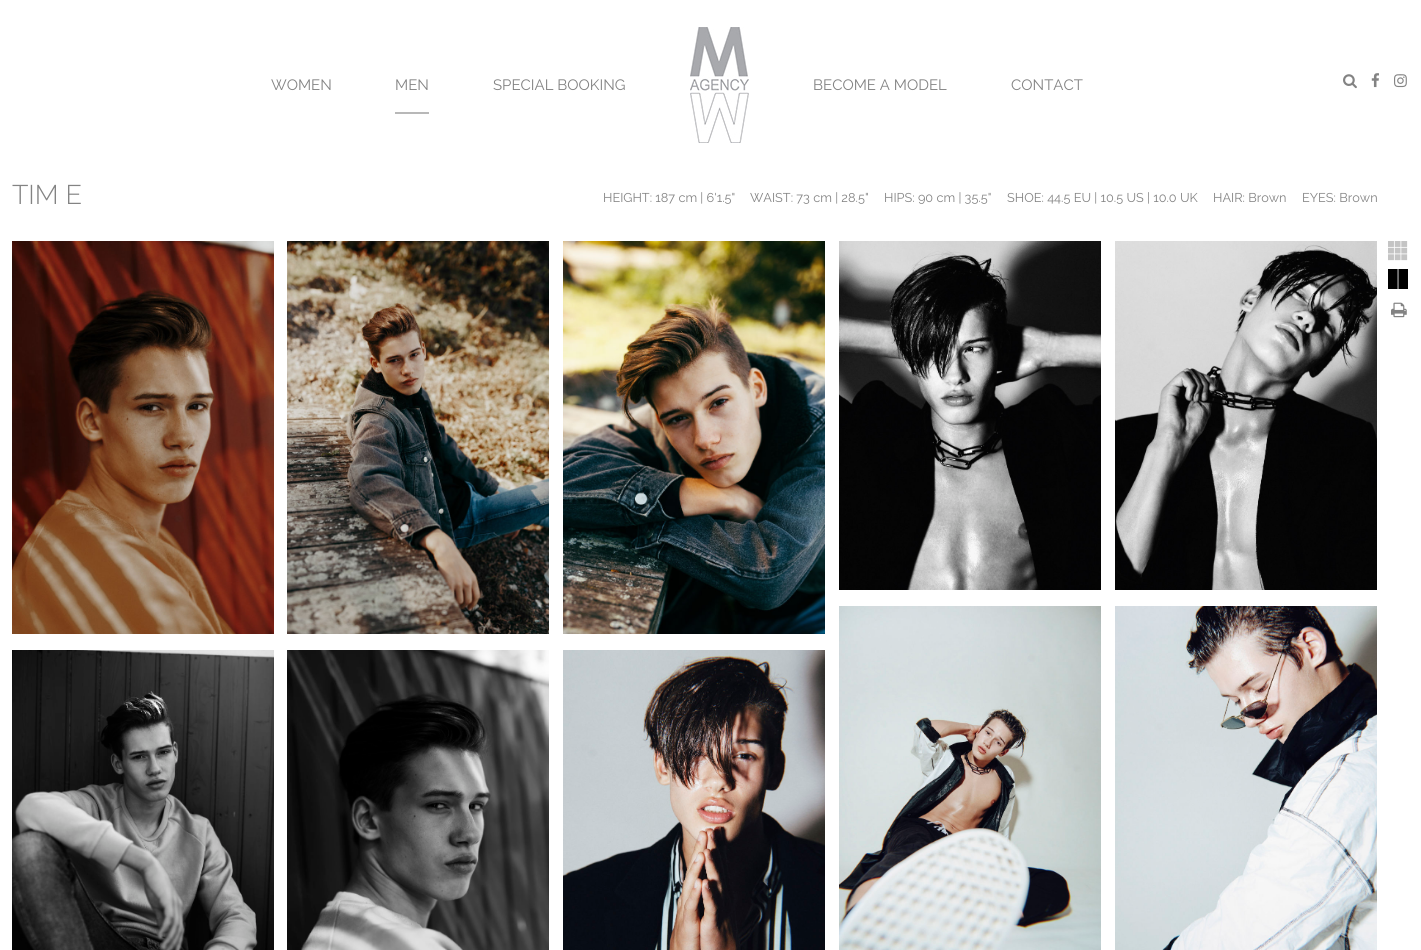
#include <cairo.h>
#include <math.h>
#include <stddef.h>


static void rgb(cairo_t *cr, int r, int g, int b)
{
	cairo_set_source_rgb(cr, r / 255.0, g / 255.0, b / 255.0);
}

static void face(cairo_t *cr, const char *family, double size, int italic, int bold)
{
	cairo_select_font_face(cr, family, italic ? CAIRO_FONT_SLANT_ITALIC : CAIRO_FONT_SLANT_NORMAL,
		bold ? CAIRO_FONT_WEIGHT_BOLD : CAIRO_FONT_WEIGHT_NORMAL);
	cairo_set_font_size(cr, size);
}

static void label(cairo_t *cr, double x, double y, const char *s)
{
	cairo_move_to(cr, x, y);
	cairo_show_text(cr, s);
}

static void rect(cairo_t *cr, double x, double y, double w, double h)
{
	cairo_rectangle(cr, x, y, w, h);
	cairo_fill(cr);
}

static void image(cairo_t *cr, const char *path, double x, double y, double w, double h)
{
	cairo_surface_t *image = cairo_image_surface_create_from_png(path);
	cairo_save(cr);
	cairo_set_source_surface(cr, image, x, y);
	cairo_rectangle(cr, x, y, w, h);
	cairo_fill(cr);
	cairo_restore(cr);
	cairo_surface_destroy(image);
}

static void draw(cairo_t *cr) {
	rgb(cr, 255, 255, 255);
	cairo_paint(cr);
	face(cr, "Raleway", 15, 0, 0);
	rgb(cr, 131, 131, 131);
	label(cr, 271, 90, "WOMEN");
	rgb(cr, 184, 184, 184);
	rect(cr, 395, 112, 34, 2);
	rgb(cr, 131, 131, 131);
	label(cr, 395, 90, "MEN");
	label(cr, 493, 90, "SPECIAL BOOKING");
	image(cr, "image0.png", 690, 27, 59, 116);
	label(cr, 813, 90, "BECOME A MODEL");
	label(cr, 1011, 90, "CONTACT");
	image(cr, "image1.png", 1343, 74, 14, 15);
	image(cr, "image2.png", 1371, 73, 8, 15);
	image(cr, "image3.png", 1394, 74, 13, 14);
	face(cr, "Raleway Light", 27, 0, 0);
	label(cr, 12, 204, "TIM E");
	face(cr, "Raleway", 12.75, 0, 0);
	label(cr, 603, 202, "HEIGHT: 187 cm | 6'1.5\"");
	label(cr, 750, 202, "WAIST: 73 cm | 28.5\"");
	label(cr, 884, 202, "HIPS: 90 cm | 35.5\"");
	label(cr, 1007, 202, "SHOE: 44.5 EU | 10.5 US | 10.0 UK");
	label(cr, 1213, 202, "HAIR: Brown");
	label(cr, 1302, 202, "EYES: Brown");
	image(cr, "image4.png", 12, 241, 262, 393);
	image(cr, "image5.png", 287, 241, 262, 393);
	image(cr, "image6.png", 563, 241, 262, 393);
	image(cr, "image7.png", 839, 241, 262, 349);
	image(cr, "image8.png", 1115, 241, 262, 349);
	image(cr, "image9.png", 12, 650, 262, 300);
	image(cr, "image10.png", 287, 650, 262, 300);
	image(cr, "image11.png", 563, 650, 262, 300);
	image(cr, "image12.png", 839, 606, 262, 344);
	image(cr, "image13.png", 1115, 606, 262, 344);
	image(cr, "image14.png", 1388, 241, 20, 20);
	image(cr, "image15.png", 1388, 269, 20, 20);
	image(cr, "image16.png", 1391, 302, 16, 16);
}

int main(void) {
	cairo_surface_t *surface = cairo_image_surface_create(CAIRO_FORMAT_RGB24, 1421, 950);
	cairo_t *cr = cairo_create(surface);
	cairo_font_options_t *options = cairo_font_options_create();
	cairo_font_options_set_hint_metrics(options, CAIRO_HINT_METRICS_OFF);
	cairo_font_options_set_hint_style(options, CAIRO_HINT_STYLE_NONE);
	cairo_set_font_options(cr, options);
	cairo_set_miter_limit(cr, 4);
	draw(cr);
	cairo_surface_write_to_png(surface, "render.png");
	cairo_font_options_destroy(options);
	cairo_destroy(cr);
	cairo_surface_destroy(surface);
	return 0;
}
